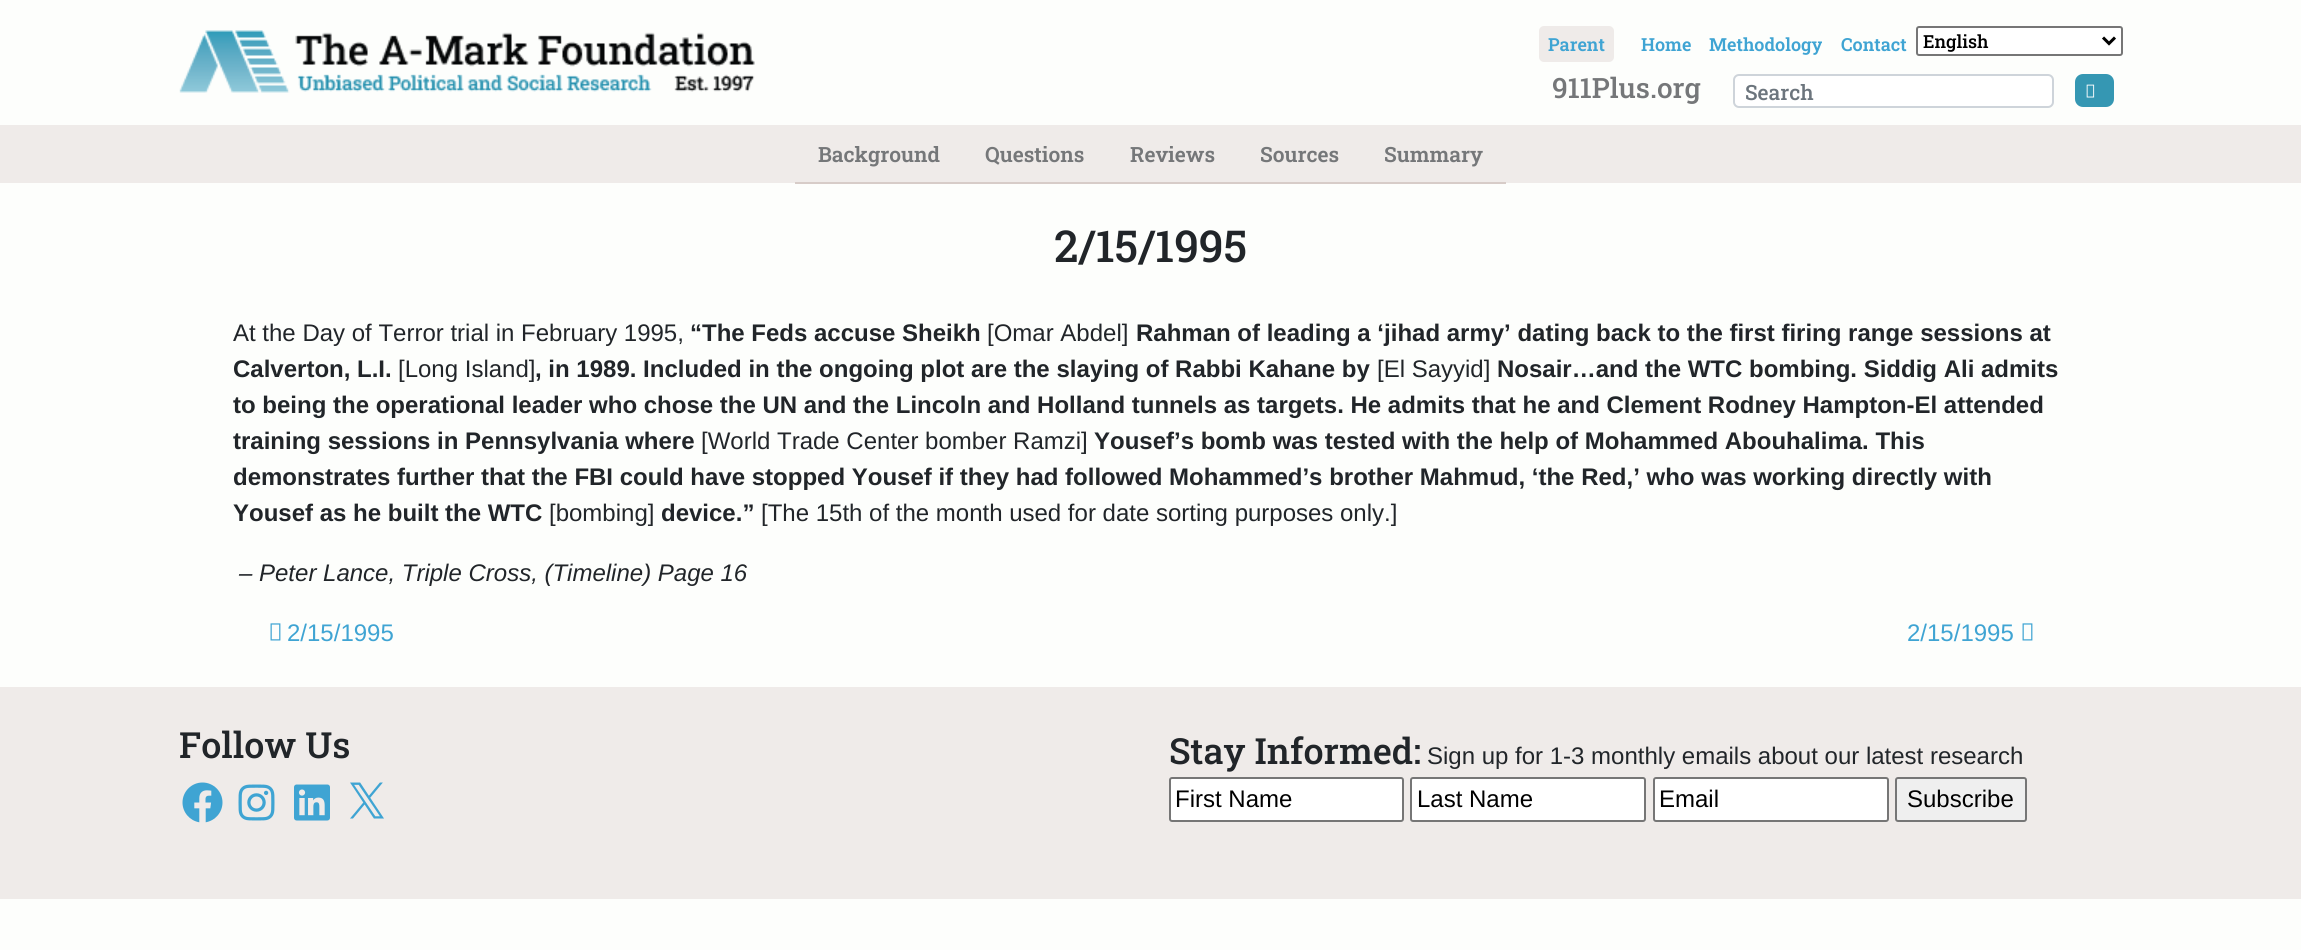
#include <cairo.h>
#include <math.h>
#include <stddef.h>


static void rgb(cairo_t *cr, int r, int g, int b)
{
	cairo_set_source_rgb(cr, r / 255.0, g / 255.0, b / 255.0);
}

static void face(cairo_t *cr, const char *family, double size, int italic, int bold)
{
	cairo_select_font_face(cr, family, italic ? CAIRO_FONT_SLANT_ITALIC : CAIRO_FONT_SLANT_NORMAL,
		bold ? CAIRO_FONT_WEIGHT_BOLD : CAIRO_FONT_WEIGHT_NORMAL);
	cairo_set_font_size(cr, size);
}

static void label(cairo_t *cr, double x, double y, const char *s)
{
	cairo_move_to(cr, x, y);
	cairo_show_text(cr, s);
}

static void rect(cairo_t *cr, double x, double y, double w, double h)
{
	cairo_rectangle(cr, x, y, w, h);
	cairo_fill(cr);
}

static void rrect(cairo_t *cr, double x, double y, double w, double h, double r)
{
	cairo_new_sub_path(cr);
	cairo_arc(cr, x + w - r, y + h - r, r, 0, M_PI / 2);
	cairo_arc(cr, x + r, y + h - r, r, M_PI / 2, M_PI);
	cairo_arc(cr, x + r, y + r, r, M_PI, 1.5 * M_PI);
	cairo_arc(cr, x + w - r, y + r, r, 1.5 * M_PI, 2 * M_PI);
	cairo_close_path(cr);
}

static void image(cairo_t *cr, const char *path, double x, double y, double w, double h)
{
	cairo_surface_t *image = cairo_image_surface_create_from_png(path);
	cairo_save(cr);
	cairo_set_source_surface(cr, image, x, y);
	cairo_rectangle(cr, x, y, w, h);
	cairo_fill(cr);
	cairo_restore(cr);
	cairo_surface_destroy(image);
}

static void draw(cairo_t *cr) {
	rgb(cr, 253, 254, 252);
	cairo_paint(cr);
	image(cr, "image0.png", 179, 30, 576, 63);
	rgb(cr, 239, 235, 233);
	rrect(cr, 1539, 26, 75, 36, 5);
	cairo_fill(cr);
	face(cr, "Roboto Slab SemiBold", 18, 0, 0);
	rgb(cr, 63, 164, 211);
	label(cr, 1548, 51, "Parent");
	label(cr, 1641, 51, "Home");
	label(cr, 1709, 51, "Methodology");
	label(cr, 1841, 51, "Contact");
	rgb(cr, 255, 255, 255);
	rrect(cr, 1917, 27, 205, 28, 2);
	cairo_fill_preserve(cr);
	rgb(cr, 118, 118, 118);
	cairo_stroke(cr);
	cairo_new_path(cr);
	cairo_move_to(cr, 2103, 37.5);
	cairo_line_to(cr, 2109, 43.5);
	cairo_line_to(cr, 2115, 37.5);
	rgb(cr, 0, 0, 0);
	cairo_set_line_width(cr, 3);
	cairo_stroke(cr);
	face(cr, "Roboto Slab Medium", 18, 0, 0);
	label(cr, 1923, 48, "English");
	face(cr, "Roboto Slab Medium", 28, 0, 0);
	rgb(cr, 117, 119, 121);
	label(cr, 1552, 98, "911Plus.org");
	rgb(cr, 255, 255, 255);
	rrect(cr, 1734, 75, 319, 32, 5);
	cairo_fill_preserve(cr);
	rgb(cr, 206, 212, 218);
	cairo_set_line_width(cr, 2);
	cairo_stroke(cr);
	face(cr, "Roboto Slab Medium", 21, 0, 0);
	rgb(cr, 108, 117, 125);
	label(cr, 1745, 100, "Search");
	rgb(cr, 53, 151, 179);
	rrect(cr, 2075, 74, 39, 33, 8);
	cairo_fill(cr);
	image(cr, "image1.png", 2086, 84, 9, 14);
	rgb(cr, 239, 235, 233);
	rect(cr, 0, 125, 2301, 58);
	rgb(cr, 215, 204, 200);
	rect(cr, 795, 182, 711, 2);
	face(cr, "Roboto Slab SemiBold", 21, 0, 0);
	rgb(cr, 117, 119, 121);
	label(cr, 818, 162, "Background");
	label(cr, 985, 162, "Questions");
	label(cr, 1130, 162, "Reviews");
	label(cr, 1260, 162, "Sources");
	label(cr, 1384, 162, "Summary");
	face(cr, "Roboto Slab Medium", 44, 0, 0);
	rgb(cr, 33, 37, 41);
	label(cr, 1054, 262, "2/15/1995");
	face(cr, "Liberation Sans", 24, 0, 0);
	label(cr, 233, 341, "At the Day of Terror trial in February 1995,");
	face(cr, "Liberation Sans", 24, 0, 1);
	label(cr, 690, 341, "“The Feds accuse Sheikh");
	face(cr, "Liberation Sans", 24, 0, 0);
	label(cr, 987, 341, "[Omar Abdel]");
	face(cr, "Liberation Sans", 24, 0, 1);
	label(cr, 1136, 341, "Rahman of leading a ‘jihad army’ dating back to the first firing range sessions at");
	label(cr, 233, 377, "Calverton, L.I.");
	face(cr, "Liberation Sans", 24, 0, 0);
	label(cr, 398, 377, "[Long Island]");
	face(cr, "Liberation Sans", 24, 0, 1);
	label(cr, 535, 377, ", in 1989. Included in the ongoing plot are the slaying of Rabbi Kahane by");
	face(cr, "Liberation Sans", 24, 0, 0);
	label(cr, 1377, 377, "[El Sayyid]");
	face(cr, "Liberation Sans", 24, 0, 1);
	label(cr, 1497, 377, "Nosair…and the WTC bombing. Siddig Ali admits");
	label(cr, 233, 413, "to being the operational leader who chose the UN and the Lincoln and Holland tunnels as targets. He admits that he and Clement Rodney Hampton-El attended");
	label(cr, 233, 449, "training sessions in Pennsylvania where");
	face(cr, "Liberation Sans", 24, 0, 0);
	label(cr, 701, 449, "[World Trade Center bomber Ramzi]");
	face(cr, "Liberation Sans", 24, 0, 1);
	label(cr, 1094, 449, "Yousef’s bomb was tested with the help of Mohammed Abouhalima. This");
	label(cr, 233, 485, "demonstrates further that the FBI could have stopped Yousef if they had followed Mohammed’s brother Mahmud, ‘the Red,’ who was working directly with");
	label(cr, 233, 521, "Yousef as he built the WTC");
	face(cr, "Liberation Sans", 24, 0, 0);
	label(cr, 549, 521, "[bombing]");
	face(cr, "Liberation Sans", 24, 0, 1);
	label(cr, 661, 521, "device.”");
	face(cr, "Liberation Sans", 24, 0, 0);
	label(cr, 761, 521, "[The 15th of the month used for date sorting purposes only.]");
	face(cr, "Liberation Sans", 24, 1, 0);
	label(cr, 239, 581, "– Peter Lance, Triple Cross, (Timeline) Page 16");
	image(cr, "image2.png", 270, 623, 11, 18);
	face(cr, "Liberation Sans", 24, 0, 0);
	rgb(cr, 63, 164, 211);
	label(cr, 287, 641, "2/15/1995");
	label(cr, 1907, 641, "2/15/1995");
	image(cr, "image2.png", 2022, 623, 11, 18);
	rgb(cr, 239, 235, 233);
	rect(cr, 0, 687, 2301, 212);
	face(cr, "Roboto Slab Medium", 36, 0, 0);
	rgb(cr, 33, 37, 41);
	label(cr, 179, 758, "Follow Us");
	image(cr, "image3.png", 182, 782, 41, 41);
	image(cr, "image4.png", 238, 784, 37, 37);
	image(cr, "image5.png", 294, 784, 36, 37);
	image(cr, "image6.png", 350, 782, 34, 37);
	label(cr, 1169, 764, "Stay Informed:");
	face(cr, "Liberation Sans", 24, 0, 0);
	label(cr, 1427, 764, "Sign up for 1-3 monthly emails about our latest research");
	rgb(cr, 255, 255, 255);
	rrect(cr, 1170, 778, 233, 43, 2);
	cairo_fill_preserve(cr);
	rgb(cr, 118, 118, 118);
	cairo_stroke(cr);
	rgb(cr, 0, 0, 0);
	label(cr, 1175, 807, "First Name");
	rgb(cr, 255, 255, 255);
	rrect(cr, 1411, 778, 234, 43, 2);
	cairo_fill_preserve(cr);
	rgb(cr, 118, 118, 118);
	cairo_stroke(cr);
	rgb(cr, 0, 0, 0);
	label(cr, 1417, 807, "Last Name");
	rgb(cr, 255, 255, 255);
	rrect(cr, 1654, 778, 234, 43, 2);
	cairo_fill_preserve(cr);
	rgb(cr, 118, 118, 118);
	cairo_stroke(cr);
	rgb(cr, 0, 0, 0);
	label(cr, 1659, 807, "Email");
	rgb(cr, 239, 239, 239);
	rrect(cr, 1896, 778, 130, 43, 2);
	cairo_fill_preserve(cr);
	rgb(cr, 118, 118, 118);
	cairo_stroke(cr);
	rgb(cr, 0, 0, 0);
	label(cr, 1907, 807, "Subscribe");
}

int main(void) {
	cairo_surface_t *surface = cairo_image_surface_create(CAIRO_FORMAT_RGB24, 2301, 950);
	cairo_t *cr = cairo_create(surface);
	cairo_font_options_t *options = cairo_font_options_create();
	cairo_font_options_set_hint_metrics(options, CAIRO_HINT_METRICS_OFF);
	cairo_font_options_set_hint_style(options, CAIRO_HINT_STYLE_NONE);
	cairo_set_font_options(cr, options);
	cairo_set_miter_limit(cr, 4);
	draw(cr);
	cairo_surface_write_to_png(surface, "render.png");
	cairo_font_options_destroy(options);
	cairo_destroy(cr);
	cairo_surface_destroy(surface);
	return 0;
}
